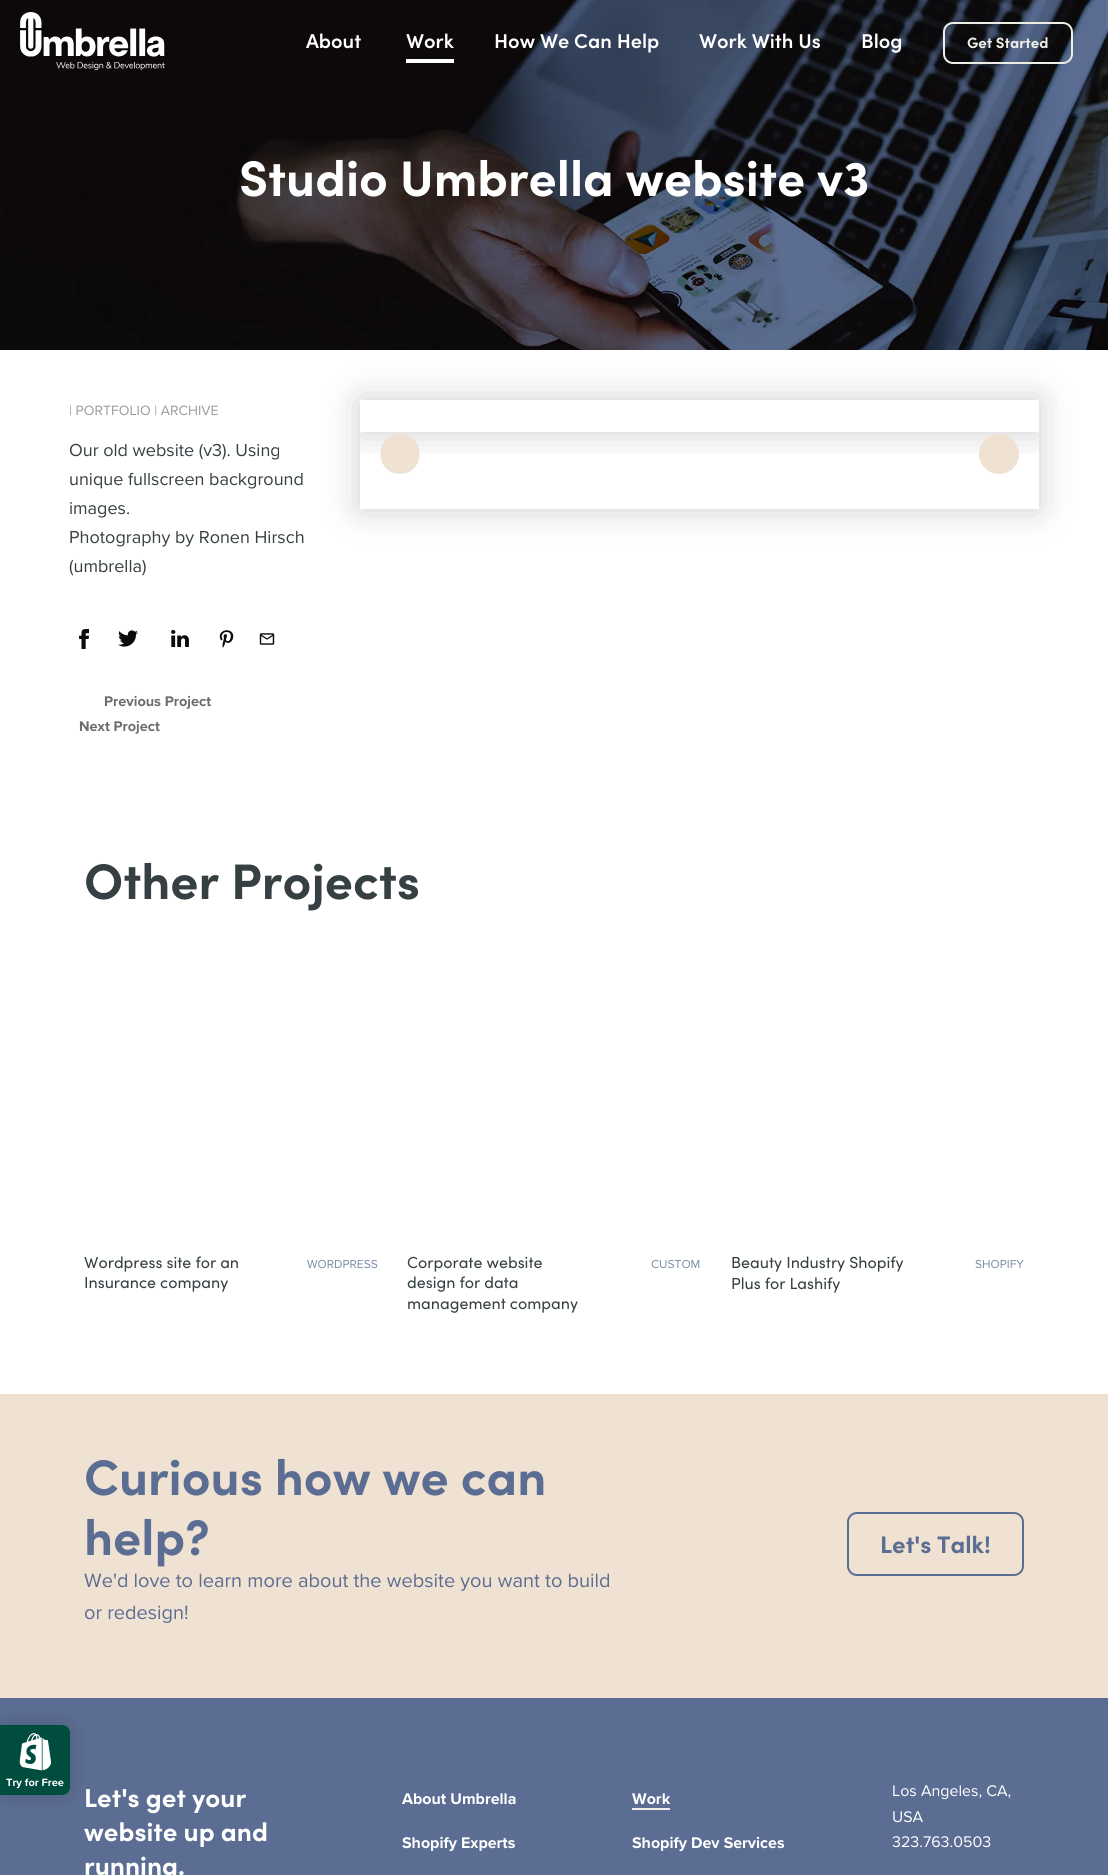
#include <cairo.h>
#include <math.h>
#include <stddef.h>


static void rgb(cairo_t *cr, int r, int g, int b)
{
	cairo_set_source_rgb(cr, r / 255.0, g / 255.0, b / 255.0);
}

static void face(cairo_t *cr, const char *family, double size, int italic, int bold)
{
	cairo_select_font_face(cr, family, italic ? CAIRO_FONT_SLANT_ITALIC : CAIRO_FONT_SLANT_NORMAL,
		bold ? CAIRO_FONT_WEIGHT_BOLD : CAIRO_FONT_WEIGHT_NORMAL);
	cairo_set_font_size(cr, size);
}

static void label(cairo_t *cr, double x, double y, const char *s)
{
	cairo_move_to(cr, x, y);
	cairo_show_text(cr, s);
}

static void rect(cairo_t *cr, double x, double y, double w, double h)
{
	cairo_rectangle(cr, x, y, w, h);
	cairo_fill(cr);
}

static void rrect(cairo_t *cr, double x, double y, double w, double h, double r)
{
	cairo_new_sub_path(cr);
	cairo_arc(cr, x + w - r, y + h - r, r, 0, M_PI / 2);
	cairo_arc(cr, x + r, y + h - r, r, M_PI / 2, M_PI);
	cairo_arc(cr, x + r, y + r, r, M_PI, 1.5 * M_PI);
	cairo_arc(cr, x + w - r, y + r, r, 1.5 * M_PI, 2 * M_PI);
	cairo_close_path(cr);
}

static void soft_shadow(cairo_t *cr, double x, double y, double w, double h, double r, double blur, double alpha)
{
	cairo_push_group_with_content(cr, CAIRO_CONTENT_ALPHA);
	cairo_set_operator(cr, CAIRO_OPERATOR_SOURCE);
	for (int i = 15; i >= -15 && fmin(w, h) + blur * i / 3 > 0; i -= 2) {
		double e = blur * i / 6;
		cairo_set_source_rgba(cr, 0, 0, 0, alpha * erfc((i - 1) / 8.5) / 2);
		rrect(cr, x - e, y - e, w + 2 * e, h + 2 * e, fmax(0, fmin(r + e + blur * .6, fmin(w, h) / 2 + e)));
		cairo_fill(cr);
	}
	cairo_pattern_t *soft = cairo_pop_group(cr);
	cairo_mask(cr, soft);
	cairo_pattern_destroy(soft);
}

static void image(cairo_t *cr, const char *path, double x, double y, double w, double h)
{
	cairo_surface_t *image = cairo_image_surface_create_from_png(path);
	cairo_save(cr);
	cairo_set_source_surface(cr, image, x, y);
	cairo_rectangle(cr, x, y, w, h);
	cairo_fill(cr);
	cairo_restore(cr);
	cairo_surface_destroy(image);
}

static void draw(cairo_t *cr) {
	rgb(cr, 255, 255, 255);
	cairo_paint(cr);
	cairo_save(cr);
	cairo_set_fill_rule(cr, CAIRO_FILL_RULE_EVEN_ODD);
	cairo_new_path(cr);
	cairo_move_to(cr, 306, 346);
	cairo_line_to(cr, 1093, 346);
	cairo_line_to(cr, 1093, 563);
	cairo_line_to(cr, 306, 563);
	cairo_close_path(cr);
	cairo_move_to(cr, 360, 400);
	cairo_line_to(cr, 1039, 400);
	cairo_line_to(cr, 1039, 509);
	cairo_line_to(cr, 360, 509);
	cairo_close_path(cr);
	cairo_clip(cr);
	rgb(cr, 0, 0, 0);
	soft_shadow(cr, 360, 400, 679, 109, 0, 17.5, 0.2);
	cairo_restore(cr);
	cairo_save(cr);
	cairo_rectangle(cr, 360, 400, 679, 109);
	cairo_clip(cr);
	cairo_rectangle(cr, 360, 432, 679, 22);
	cairo_clip(cr);
	rgb(cr, 0, 0, 0);
	soft_shadow(cr, 360, 400, 679, 32, 0, 17.5, 0.2);
	cairo_restore(cr);
	image(cr, "image1.png", 0, 0, 1108, 350);
	image(cr, "image0.png", 20, 12, 145, 58);
	face(cr, "Sofia SemiBold", 20, 0, 0);
	rgb(cr, 255, 255, 255);
	label(cr, 306, 48, "About");
	label(cr, 406, 48, "Work");
	rect(cr, 406, 59, 48, 4);
	label(cr, 494, 48, "How We Can Help");
	label(cr, 699, 48, "Work With Us");
	label(cr, 861, 48, "Blog");
	rrect(cr, 944, 23, 128, 40, 9);
	rgb(cr, 239, 238, 229);
	cairo_stroke(cr);
	face(cr, "Sofia", 15, 0, 1);
	label(cr, 967, 48, "Get Started");
	face(cr, "Sofia", 50, 0, 1);
	rgb(cr, 255, 255, 255);
	label(cr, 239, 196, "Studio Umbrella website v3");
	face(cr, "Proxima Nova", 14, 0, 0);
	rgb(cr, 155, 155, 155);
	label(cr, 69, 415, "| PORTFOLIO | ARCHIVE");
	face(cr, "Proxima Nova", 18, 0, 0);
	rgb(cr, 54, 64, 66);
	label(cr, 69, 456, "Our old website (v3). Using");
	label(cr, 69, 485, "unique fullscreen background");
	label(cr, 69, 514, "images.");
	label(cr, 69, 543, "Photography by Ronen Hirsch");
	label(cr, 69, 572, "(umbrella)");
	image(cr, "image2.png", 79, 629, 10, 20);
	image(cr, "image3.png", 118, 630, 20, 17);
	image(cr, "image4.png", 171, 629, 18, 18);
	image(cr, "image5.png", 219, 630, 15, 18);
	image(cr, "image6.png", 259, 633, 16, 12);
	face(cr, "Proxima Nova", 14.5, 0, 1);
	rgb(cr, 108, 108, 108);
	label(cr, 104, 706, "Previous Project");
	label(cr, 79, 731, "Next Project");
	rgb(cr, 240, 226, 210);
	cairo_new_path(cr);
	cairo_move_to(cr, 400, 474);
	cairo_curve_to(cr, 374, 474, 374, 434, 400, 434);
	cairo_curve_to(cr, 426, 434, 426, 474, 400, 474);
	cairo_close_path(cr);
	cairo_fill(cr);
	cairo_arc(cr, 999, 454, 20, 0, 2 * M_PI);
	cairo_fill(cr);
	face(cr, "Sofia", 50, 0, 1);
	rgb(cr, 54, 64, 66);
	label(cr, 84, 899, "Other Projects");
	face(cr, "Sofia", 16, 0, 0);
	label(cr, 84, 1268, "Wordpress site for an");
	label(cr, 84, 1288, "Insurance company");
	face(cr, "Proxima Nova", 12, 0, 0);
	rgb(cr, 124, 138, 168);
	label(cr, 307, 1268, "WORDPRESS");
	face(cr, "Sofia", 16, 0, 0);
	rgb(cr, 54, 64, 66);
	label(cr, 407, 1268, "Corporate website");
	label(cr, 407, 1288, "design for data");
	label(cr, 407, 1309, "management company");
	face(cr, "Proxima Nova", 12, 0, 0);
	rgb(cr, 124, 138, 168);
	label(cr, 651, 1268, "CUSTOM");
	face(cr, "Sofia", 16, 0, 0);
	rgb(cr, 54, 64, 66);
	label(cr, 731, 1268, "Beauty Industry Shopify");
	label(cr, 731, 1289, "Plus for Lashify");
	face(cr, "Proxima Nova", 12, 0, 0);
	rgb(cr, 124, 138, 168);
	label(cr, 975, 1268, "SHOPIFY");
	rgb(cr, 240, 226, 210);
	rect(cr, 0, 1394, 1108, 304);
	face(cr, "Sofia", 50, 0, 1);
	rgb(cr, 91, 109, 146);
	label(cr, 84, 1495, "Curious how we can");
	label(cr, 84, 1555, "help?");
	face(cr, "Proxima Nova", 20, 0, 0);
	label(cr, 84, 1587, "We'd love to learn more about the website you want to build");
	label(cr, 84, 1619, "or redesign!");
	rrect(cr, 848, 1513, 175, 62, 9);
	cairo_stroke(cr);
	face(cr, "Sofia", 24, 0, 1);
	label(cr, 880, 1553, "Let's Talk!");
	rect(cr, 0, 1698, 1108, 177);
	rgb(cr, 0, 0, 0);
	soft_shadow(cr, -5, 1720, 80, 80, 13, 7.5, 0.1);
	rgb(cr, 0, 76, 63);
	cairo_new_path(cr);
	cairo_move_to(cr, 0, 1725);
	cairo_line_to(cr, 62, 1725);
	cairo_curve_to(cr, 66.5, 1725, 70, 1728.5, 70, 1733);
	cairo_line_to(cr, 70, 1787);
	cairo_curve_to(cr, 70, 1791.5, 66.5, 1795, 62, 1795);
	cairo_line_to(cr, 0, 1795);
	cairo_close_path(cr);
	cairo_fill(cr);
	image(cr, "image7.png", 19, 1733, 33, 38);
	face(cr, "Proxima Nova", 11, 0, 1);
	rgb(cr, 255, 255, 255);
	label(cr, 6, 1786, "Try for Free");
	face(cr, "Sofia", 26, 0, 1);
	label(cr, 84, 1807, "Let's get your");
	label(cr, 84, 1841, "website up and");
	label(cr, 84, 1875, "running.");
	face(cr, "Proxima Nova", 16, 0, 1);
	label(cr, 402, 1804, "About Umbrella");
	rgb(cr, 239, 238, 229);
	rect(cr, 632, 1808, 38, 2);
	rgb(cr, 255, 255, 255);
	label(cr, 632, 1804, "Work");
	label(cr, 402, 1848, "Shopify Experts");
	label(cr, 632, 1848, "Shopify Dev Services");
	face(cr, "Proxima Nova", 16, 0, 0);
	label(cr, 892, 1796, "Los Angeles, CA,");
	label(cr, 892, 1822, "USA");
	label(cr, 892, 1847, "323.763.0503");
}

int main(void) {
	cairo_surface_t *surface = cairo_image_surface_create(CAIRO_FORMAT_RGB24, 1108, 1875);
	cairo_t *cr = cairo_create(surface);
	cairo_font_options_t *options = cairo_font_options_create();
	cairo_font_options_set_hint_metrics(options, CAIRO_HINT_METRICS_OFF);
	cairo_font_options_set_hint_style(options, CAIRO_HINT_STYLE_NONE);
	cairo_set_font_options(cr, options);
	cairo_set_miter_limit(cr, 4);
	draw(cr);
	cairo_surface_write_to_png(surface, "render.png");
	cairo_font_options_destroy(options);
	cairo_destroy(cr);
	cairo_surface_destroy(surface);
	return 0;
}
